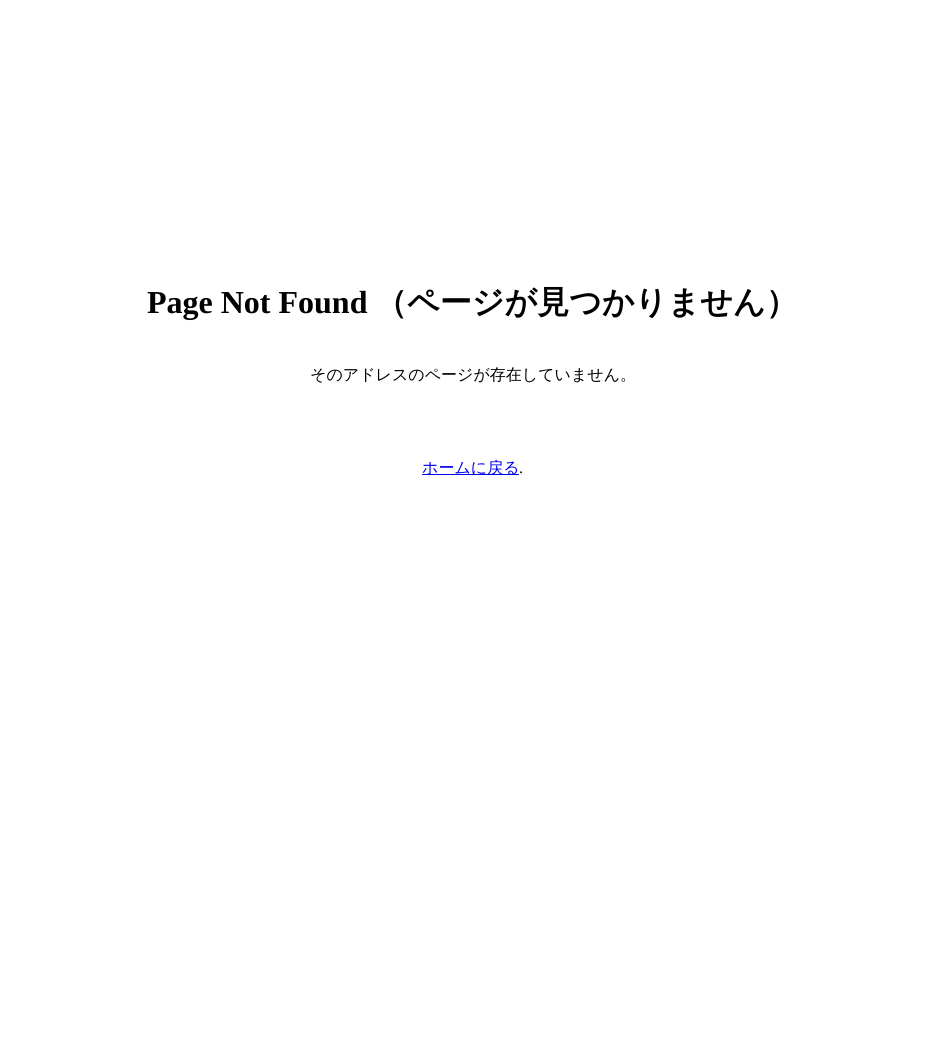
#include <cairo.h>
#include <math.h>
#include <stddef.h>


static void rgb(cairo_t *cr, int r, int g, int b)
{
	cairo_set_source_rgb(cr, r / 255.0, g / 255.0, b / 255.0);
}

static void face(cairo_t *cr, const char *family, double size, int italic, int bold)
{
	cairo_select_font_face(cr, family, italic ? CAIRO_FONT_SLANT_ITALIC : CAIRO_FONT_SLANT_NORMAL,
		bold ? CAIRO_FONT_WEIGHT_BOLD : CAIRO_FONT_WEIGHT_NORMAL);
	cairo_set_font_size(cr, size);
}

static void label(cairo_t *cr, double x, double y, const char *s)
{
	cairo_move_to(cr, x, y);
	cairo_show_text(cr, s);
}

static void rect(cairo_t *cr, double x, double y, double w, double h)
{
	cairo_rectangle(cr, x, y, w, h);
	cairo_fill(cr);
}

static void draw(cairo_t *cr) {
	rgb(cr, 255, 255, 255);
	cairo_paint(cr);
	face(cr, "Liberation Serif", 32, 0, 1);
	rgb(cr, 0, 0, 0);
	label(cr, 147, 313, "Page Not Found");
	face(cr, "WenQuanYi Zen Hei", 32, 0, 1);
	label(cr, 375, 313, "（ページが見つかりません）");
	face(cr, "WenQuanYi Zen Hei Medium", 16, 0, 0);
	label(cr, 310, 380, "そのアドレスのページが存在していません。");
	rgb(cr, 0, 0, 238);
	rect(cr, 422, 474, 97, 1);
	label(cr, 422, 473, "ホームに戻る");
	face(cr, "Liberation Serif", 16, 0, 0);
	rgb(cr, 0, 0, 0);
	label(cr, 519, 473, ".");
}

int main(void) {
	cairo_surface_t *surface = cairo_image_surface_create(CAIRO_FORMAT_RGB24, 945, 1061);
	cairo_t *cr = cairo_create(surface);
	cairo_font_options_t *options = cairo_font_options_create();
	cairo_font_options_set_hint_metrics(options, CAIRO_HINT_METRICS_OFF);
	cairo_font_options_set_hint_style(options, CAIRO_HINT_STYLE_NONE);
	cairo_set_font_options(cr, options);
	cairo_set_miter_limit(cr, 4);
	draw(cr);
	cairo_surface_write_to_png(surface, "render.png");
	cairo_font_options_destroy(options);
	cairo_destroy(cr);
	cairo_surface_destroy(surface);
	return 0;
}
